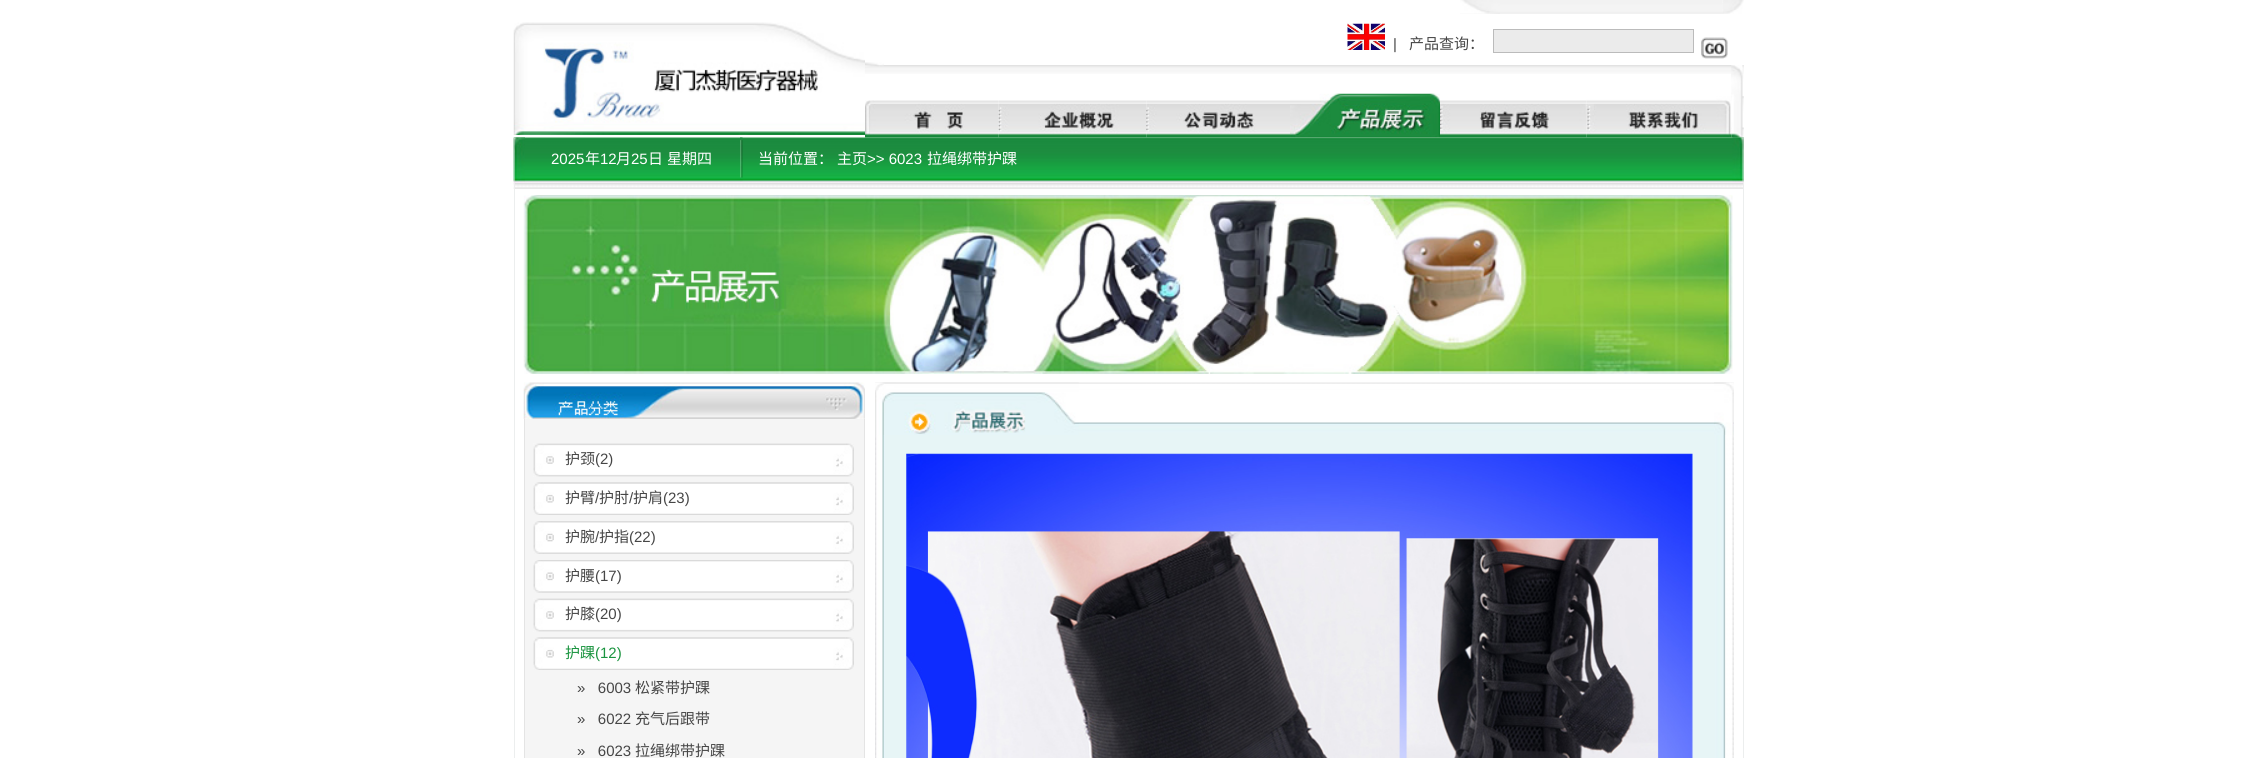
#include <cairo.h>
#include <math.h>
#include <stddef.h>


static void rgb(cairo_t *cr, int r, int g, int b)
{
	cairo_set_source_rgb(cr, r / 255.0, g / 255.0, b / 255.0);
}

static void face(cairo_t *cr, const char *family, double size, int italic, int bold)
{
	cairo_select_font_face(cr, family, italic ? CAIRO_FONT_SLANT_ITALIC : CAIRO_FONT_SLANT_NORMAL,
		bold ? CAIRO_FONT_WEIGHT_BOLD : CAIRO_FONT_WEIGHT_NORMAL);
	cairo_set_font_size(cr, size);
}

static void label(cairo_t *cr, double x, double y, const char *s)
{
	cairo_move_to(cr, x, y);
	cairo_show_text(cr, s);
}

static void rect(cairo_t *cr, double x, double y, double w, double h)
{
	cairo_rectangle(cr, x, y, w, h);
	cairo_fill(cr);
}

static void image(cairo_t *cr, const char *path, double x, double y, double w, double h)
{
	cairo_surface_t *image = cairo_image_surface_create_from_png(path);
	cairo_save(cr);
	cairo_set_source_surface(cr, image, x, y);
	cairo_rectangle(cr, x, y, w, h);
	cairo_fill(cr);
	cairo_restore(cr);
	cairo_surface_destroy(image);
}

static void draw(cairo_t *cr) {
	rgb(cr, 255, 255, 255);
	cairo_paint(cr);
	image(cr, "image0.png", 1460, 0, 263, 14);
	image(cr, "image1.png", 1460, 0, 40, 14);
	image(cr, "image2.png", 1722, 3, 1, 11);
	image(cr, "image3.png", 1722, 0, 22, 14);
	image(cr, "image4.png", 513, 22, 352, 113);
	image(cr, "image5.png", 1347, 23, 38, 27);
	face(cr, "Liberation Sans", 15, 0, 0);
	rgb(cr, 70, 70, 70);
	label(cr, 1393, 49, "|");
	face(cr, "Noto Sans CJK SC", 15, 0, 0);
	label(cr, 1409, 49, "产品查询：");
	rgb(cr, 235, 235, 235);
	cairo_rectangle(cr, 1493.5, 29.5, 200, 23);
	cairo_fill_preserve(cr);
	rgb(cr, 187, 187, 187);
	cairo_set_line_width(cr, 1);
	cairo_stroke(cr);
	image(cr, "image6.png", 1701, 37, 27, 22);
	image(cr, "image7.png", 865, 65, 867, 9);
	image(cr, "image8.png", 865, 62, 19, 5);
	image(cr, "image9.png", 1731, 65, 13, 72);
	image(cr, "image17.png", 513, 137, 1231, 46);
	image(cr, "image15.png", 1440, 100, 147, 38);
	image(cr, "image16.png", 1586, 96, 146, 42);
	image(cr, "image10.png", 1731, 65, 12, 73);
	image(cr, "image11.png", 865, 100, 134, 38);
	image(cr, "image12.png", 998, 100, 149, 38);
	image(cr, "image13.png", 1146, 100, 144, 38);
	image(cr, "image14.png", 1290, 93, 150, 45);
	image(cr, "image21.png", 513, 182, 1231, 7);
	image(cr, "image18.png", 513, 137, 12, 46);
	face(cr, "Liberation Sans", 15, 0, 0);
	rgb(cr, 255, 255, 255);
	label(cr, 551, 164, "2025");
	face(cr, "Noto Sans CJK SC", 15, 0, 0);
	label(cr, 585, 164, "年");
	face(cr, "Liberation Sans", 15, 0, 0);
	label(cr, 600, 164, "12");
	face(cr, "Noto Sans CJK SC", 15, 0, 0);
	label(cr, 616, 164, "月");
	face(cr, "Liberation Sans", 15, 0, 0);
	label(cr, 631, 164, "25");
	face(cr, "Noto Sans CJK SC", 15, 0, 0);
	label(cr, 648, 164, "日");
	label(cr, 667, 164, "星期四");
	image(cr, "image19.png", 740, 137, 3, 46);
	label(cr, 758, 164, "当前位置：");
	label(cr, 837, 164, "主页");
	face(cr, "Liberation Sans", 15, 0, 0);
	label(cr, 867, 164, ">> 6023");
	face(cr, "Noto Sans CJK SC", 15, 0, 0);
	label(cr, 927, 164, "拉绳绑带护踝");
	image(cr, "image20.png", 1732, 137, 12, 46);
	rgb(cr, 236, 238, 238);
	rect(cr, 1743, 183, 1, 575);
	rect(cr, 514, 183, 1, 575);
	image(cr, "image22.png", 523, 195, 1210, 179);
	image(cr, "image23.png", 523, 382, 342, 37);
	rgb(cr, 245, 245, 245);
	rect(cr, 525, 419, 339, 339);
	rgb(cr, 228, 228, 228);
	rect(cr, 864, 419, 1, 339);
	rect(cr, 524, 419, 1, 339);
	image(cr, "image24.png", 533, 443, 321, 34);
	image(cr, "image25.png", 533, 443, 321, 34);
	rgb(cr, 70, 70, 70);
	label(cr, 565, 464, "护颈");
	face(cr, "Liberation Sans", 15, 0, 0);
	label(cr, 595, 464, "(2)");
	image(cr, "image26.png", 533, 482, 321, 33);
	image(cr, "image27.png", 533, 482, 321, 28);
	face(cr, "Noto Sans CJK SC", 15, 0, 0);
	label(cr, 565, 503, "护臂");
	face(cr, "Liberation Sans", 15, 0, 0);
	label(cr, 595, 503, "/");
	face(cr, "Noto Sans CJK SC", 15, 0, 0);
	label(cr, 599, 503, "护肘");
	face(cr, "Liberation Sans", 15, 0, 0);
	label(cr, 629, 503, "/");
	face(cr, "Noto Sans CJK SC", 15, 0, 0);
	label(cr, 633, 503, "护肩");
	face(cr, "Liberation Sans", 15, 0, 0);
	label(cr, 663, 503, "(23)");
	image(cr, "image28.png", 533, 521, 321, 33);
	image(cr, "image29.png", 533, 521, 321, 33);
	face(cr, "Noto Sans CJK SC", 15, 0, 0);
	label(cr, 565, 542, "护腕");
	face(cr, "Liberation Sans", 15, 0, 0);
	label(cr, 595, 542, "/");
	face(cr, "Noto Sans CJK SC", 15, 0, 0);
	label(cr, 599, 542, "护指");
	face(cr, "Liberation Sans", 15, 0, 0);
	label(cr, 629, 542, "(22)");
	image(cr, "image30.png", 533, 560, 321, 33);
	image(cr, "image31.png", 533, 565, 321, 28);
	face(cr, "Noto Sans CJK SC", 15, 0, 0);
	label(cr, 565, 581, "护腰");
	face(cr, "Liberation Sans", 15, 0, 0);
	label(cr, 595, 581, "(17)");
	image(cr, "image24.png", 533, 598, 321, 34);
	image(cr, "image25.png", 533, 598, 321, 34);
	face(cr, "Noto Sans CJK SC", 15, 0, 0);
	label(cr, 565, 619, "护膝");
	face(cr, "Liberation Sans", 15, 0, 0);
	label(cr, 595, 619, "(20)");
	image(cr, "image26.png", 533, 637, 321, 33);
	image(cr, "image27.png", 533, 637, 321, 28);
	face(cr, "Noto Sans CJK SC", 15, 0, 0);
	rgb(cr, 26, 148, 63);
	label(cr, 565, 658, "护踝");
	face(cr, "Liberation Sans", 15, 0, 0);
	label(cr, 595, 658, "(12)");
	rgb(cr, 70, 70, 70);
	label(cr, 577, 693, "»   6003");
	face(cr, "Noto Sans CJK SC", 15, 0, 0);
	label(cr, 635, 693, "松紧带护踝");
	face(cr, "Liberation Sans", 15, 0, 0);
	label(cr, 577, 724, "»   6022");
	face(cr, "Noto Sans CJK SC", 15, 0, 0);
	label(cr, 635, 724, "充气后跟带");
	face(cr, "Liberation Sans", 15, 0, 0);
	label(cr, 577, 756, "»   6023");
	face(cr, "Noto Sans CJK SC", 15, 0, 0);
	label(cr, 635, 756, "拉绳绑带护踝");
	image(cr, "image32.png", 875, 382, 859, 53);
	image(cr, "image33.png", 875, 382, 204, 53);
	image(cr, "image34.png", 1714, 382, 20, 53);
	image(cr, "image35.png", 875, 435, 859, 323);
	image(cr, "image36.png", 906, 453, 787, 305);
}

int main(void) {
	cairo_surface_t *surface = cairo_image_surface_create(CAIRO_FORMAT_RGB24, 2256, 758);
	cairo_t *cr = cairo_create(surface);
	cairo_font_options_t *options = cairo_font_options_create();
	cairo_font_options_set_hint_metrics(options, CAIRO_HINT_METRICS_OFF);
	cairo_font_options_set_hint_style(options, CAIRO_HINT_STYLE_NONE);
	cairo_set_font_options(cr, options);
	cairo_set_miter_limit(cr, 4);
	draw(cr);
	cairo_surface_write_to_png(surface, "render.png");
	cairo_font_options_destroy(options);
	cairo_destroy(cr);
	cairo_surface_destroy(surface);
	return 0;
}
